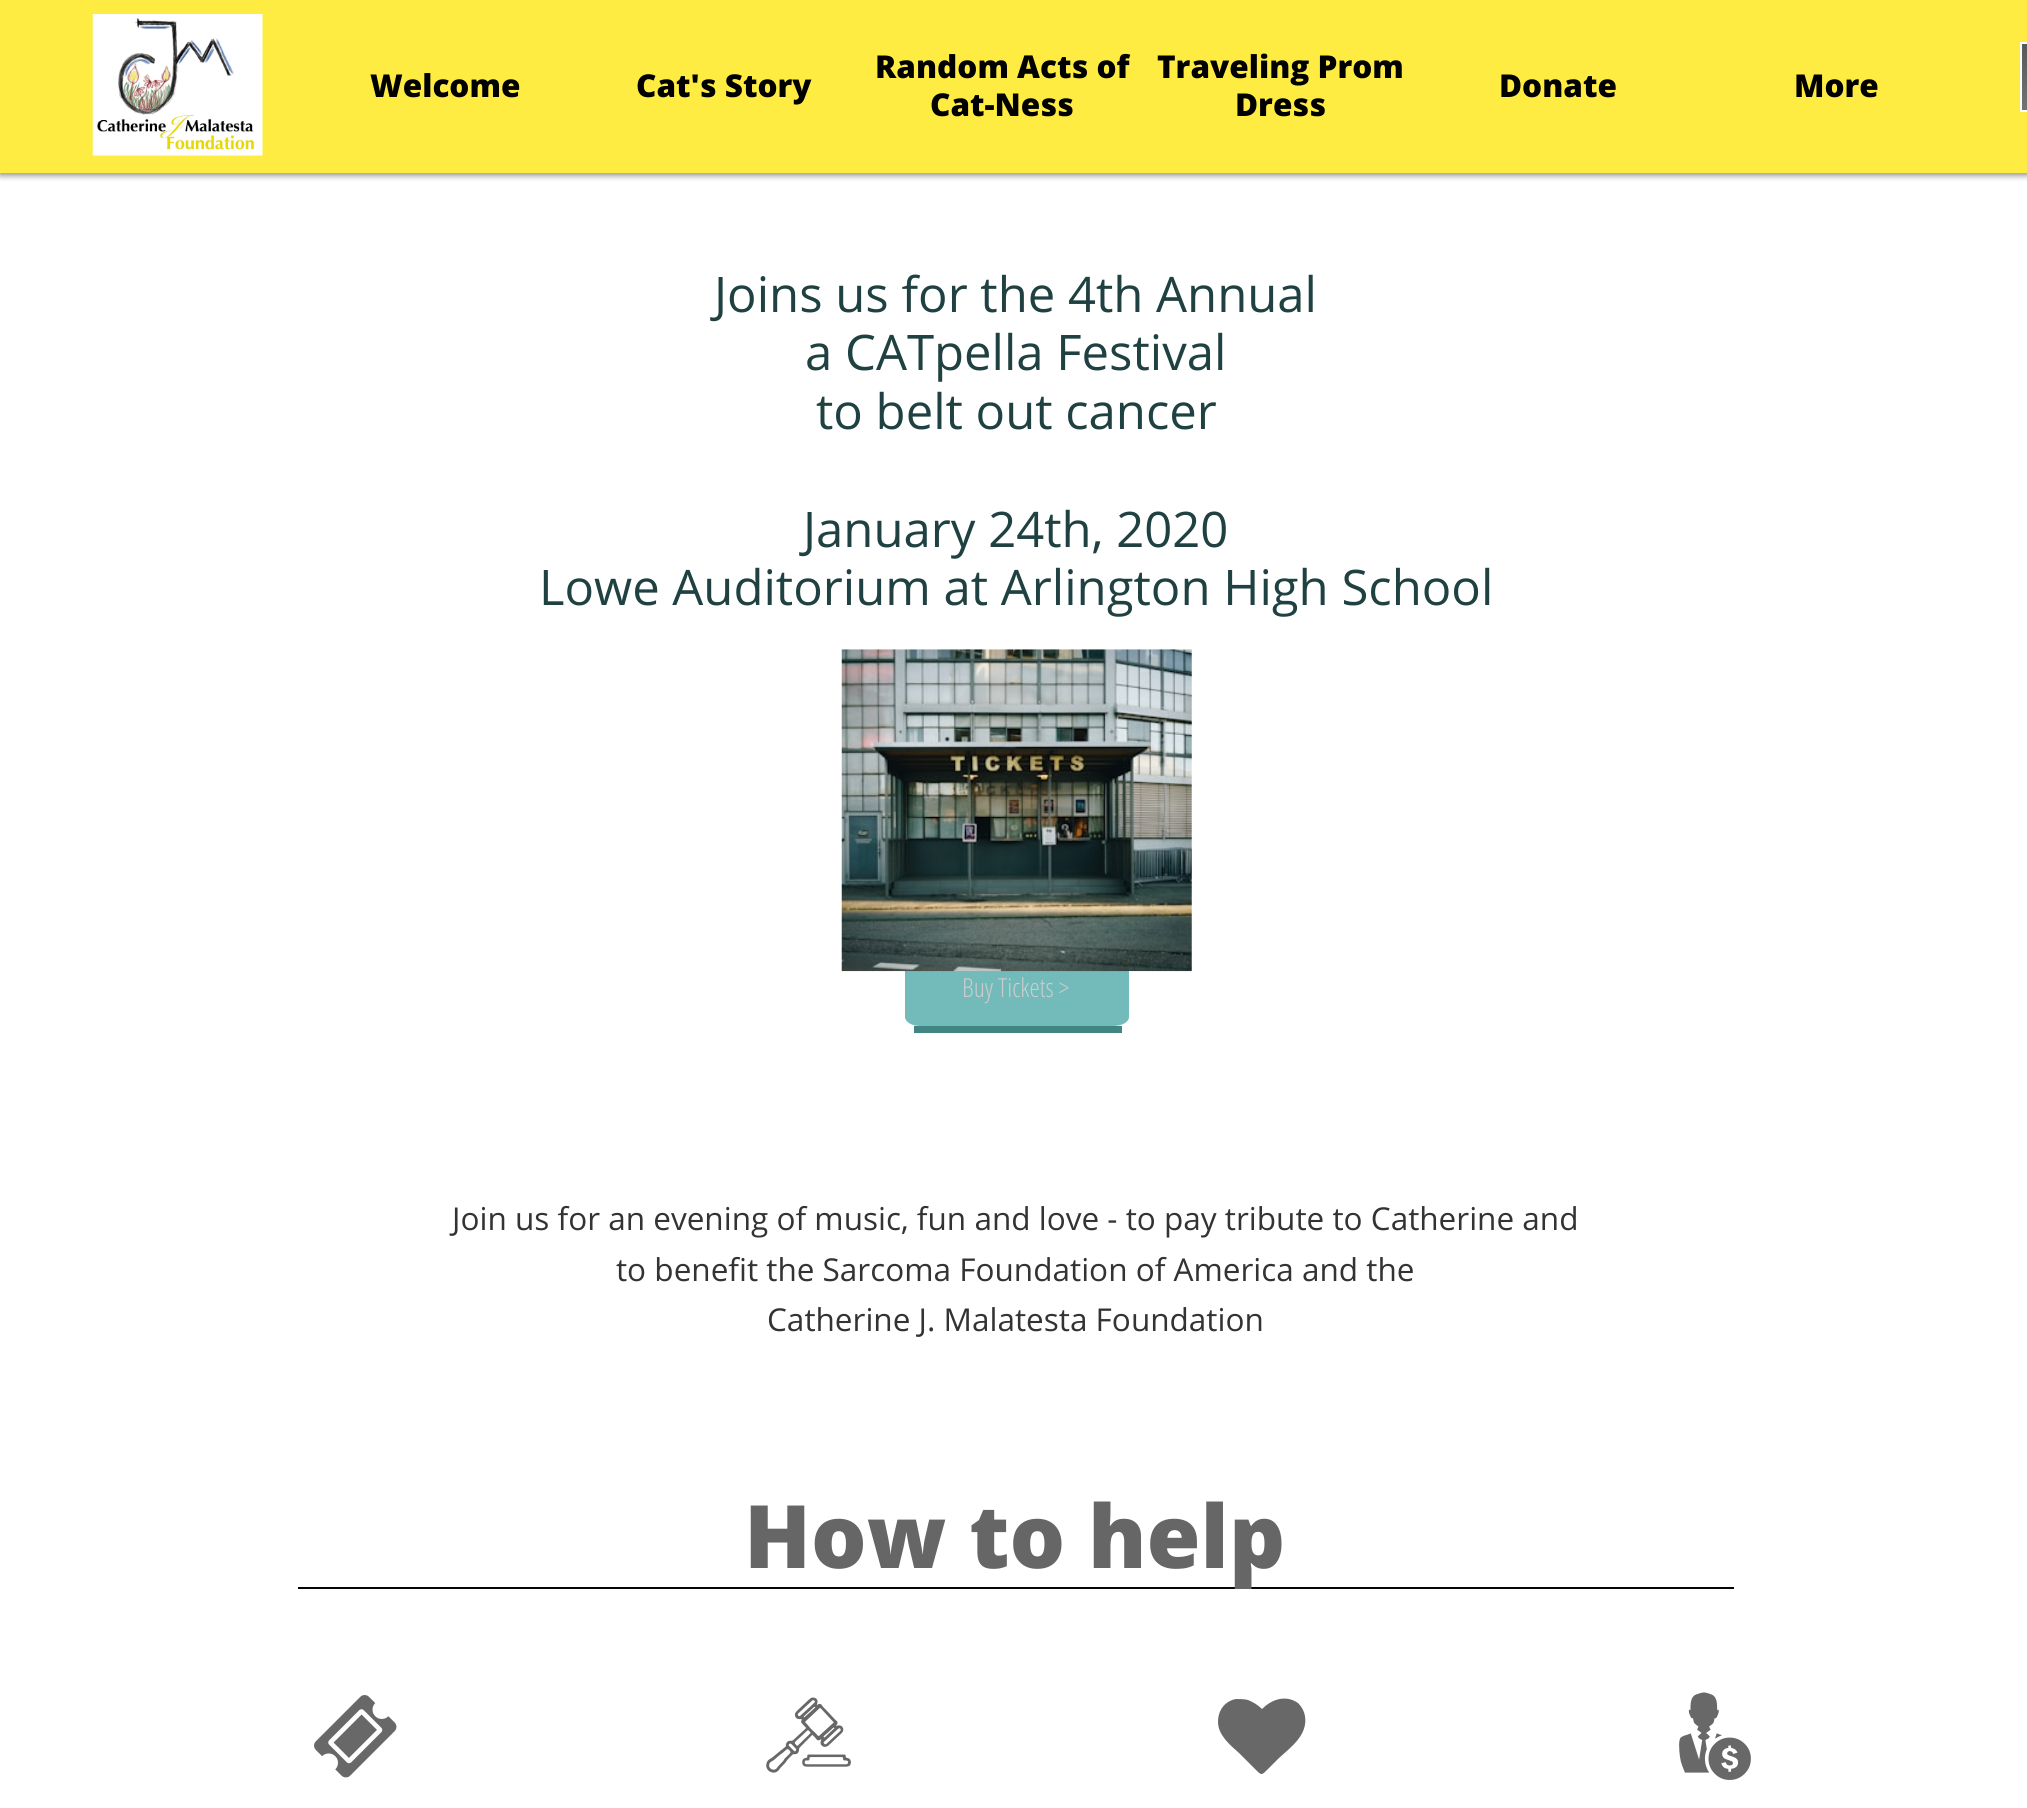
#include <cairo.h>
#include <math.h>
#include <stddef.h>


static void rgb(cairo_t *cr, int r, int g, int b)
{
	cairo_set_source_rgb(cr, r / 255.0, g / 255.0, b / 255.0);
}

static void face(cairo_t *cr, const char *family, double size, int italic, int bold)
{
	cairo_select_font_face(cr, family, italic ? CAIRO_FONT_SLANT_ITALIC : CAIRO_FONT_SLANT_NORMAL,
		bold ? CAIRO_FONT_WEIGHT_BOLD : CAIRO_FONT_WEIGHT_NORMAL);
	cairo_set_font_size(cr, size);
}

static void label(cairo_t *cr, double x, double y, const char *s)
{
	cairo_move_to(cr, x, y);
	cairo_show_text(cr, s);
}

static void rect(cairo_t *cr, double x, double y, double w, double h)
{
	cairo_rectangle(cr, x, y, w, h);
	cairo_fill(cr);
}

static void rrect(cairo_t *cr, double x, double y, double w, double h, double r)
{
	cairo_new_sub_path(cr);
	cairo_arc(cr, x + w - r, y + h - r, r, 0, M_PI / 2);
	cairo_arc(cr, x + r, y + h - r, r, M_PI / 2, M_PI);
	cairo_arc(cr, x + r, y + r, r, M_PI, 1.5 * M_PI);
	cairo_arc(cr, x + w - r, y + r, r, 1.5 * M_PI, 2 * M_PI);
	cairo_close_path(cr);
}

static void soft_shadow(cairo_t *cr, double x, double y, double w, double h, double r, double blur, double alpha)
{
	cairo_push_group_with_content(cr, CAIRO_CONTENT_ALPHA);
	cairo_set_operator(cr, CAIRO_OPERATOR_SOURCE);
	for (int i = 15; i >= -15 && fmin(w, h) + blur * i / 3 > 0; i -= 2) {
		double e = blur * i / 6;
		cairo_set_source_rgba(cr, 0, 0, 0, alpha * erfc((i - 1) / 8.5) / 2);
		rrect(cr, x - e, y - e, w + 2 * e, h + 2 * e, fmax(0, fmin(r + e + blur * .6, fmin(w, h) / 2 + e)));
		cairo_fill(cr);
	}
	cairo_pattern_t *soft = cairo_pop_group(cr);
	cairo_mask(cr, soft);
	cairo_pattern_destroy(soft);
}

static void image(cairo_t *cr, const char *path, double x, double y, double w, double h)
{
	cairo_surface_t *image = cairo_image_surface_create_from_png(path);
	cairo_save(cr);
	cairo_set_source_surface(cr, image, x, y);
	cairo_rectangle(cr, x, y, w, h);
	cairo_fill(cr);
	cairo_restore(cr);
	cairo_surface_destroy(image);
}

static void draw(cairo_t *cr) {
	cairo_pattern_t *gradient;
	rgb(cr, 255, 255, 255);
	cairo_paint(cr);
	rgb(cr, 254, 236, 67);
	rect(cr, 0, 0, 2027, 173);
	cairo_save(cr);
	cairo_rectangle(cr, 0, 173, 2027, 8);
	cairo_clip(cr);
	rgb(cr, 5, 5, 5);
	soft_shadow(cr, 0, 2, 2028, 173, 0, 3.5, 0.5);
	cairo_restore(cr);
	image(cr, "image0.png", 92, 14, 171, 142);
	face(cr, "Open Sans ExtraBold", 31.5, 0, 0);
	rgb(cr, 0, 0, 0);
	label(cr, 370, 97, "Welcome");
	label(cr, 636, 97, "Cat's Story");
	label(cr, 875, 78, "Random Acts of");
	label(cr, 930, 116, "Cat-Ness");
	label(cr, 1157, 78, "Traveling Prom");
	label(cr, 1235, 116, "Dress");
	label(cr, 1499, 97, "Donate");
	label(cr, 1794, 97, "More");
	gradient = cairo_pattern_create_linear(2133, 44, 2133, 110);
	cairo_pattern_add_color_stop_rgba(gradient, 0, 0.349, 0.349, 0.349, 1);
	cairo_pattern_add_color_stop_rgba(gradient, 1, 0.451, 0.451, 0.451, 1);
	cairo_set_source(cr, gradient);
	cairo_pattern_destroy(gradient);
	rect(cr, 2022, 44, 5, 66);
	cairo_rectangle(cr, 2021, 43, 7, 68);
	rgb(cr, 255, 255, 255);
	cairo_stroke(cr);
	face(cr, "Open Sans", 49, 0, 0);
	rgb(cr, 32, 65, 65);
	label(cr, 714, 312, "Joins us for the 4th Annual");
	label(cr, 805, 370, "a CATpella Festival");
	label(cr, 816, 429, "to belt out cancer");
	label(cr, 803, 547, "January 24th, 2020");
	label(cr, 539, 605, "Lowe Auditorium at Arlington High School");
	rgb(cr, 115, 186, 186);
	cairo_new_path(cr);
	cairo_move_to(cr, 920, 947);
	cairo_line_to(cr, 1113, 947);
	cairo_curve_to(cr, 1122, 947, 1129, 954, 1129, 962);
	cairo_line_to(cr, 1129, 1017);
	cairo_curve_to(cr, 1129, 1022, 1122, 1026, 1113, 1026);
	cairo_line_to(cr, 920, 1026);
	cairo_curve_to(cr, 912, 1026, 905, 1022, 905, 1017);
	cairo_line_to(cr, 905, 962);
	cairo_curve_to(cr, 905, 954, 912, 947, 920, 947);
	cairo_close_path(cr);
	cairo_fill(cr);
	image(cr, "image1.png", 841, 649, 351, 323);
	rgb(cr, 66, 133, 133);
	rect(cr, 914, 1026, 208, 7);
	face(cr, "Open Sans Light", 26.25, 0, 0);
	rgb(cr, 204, 204, 204);
	label(cr, 962, 997, "Buy Tickets >");
	face(cr, "Open Sans", 31.5, 0, 0);
	rgb(cr, 51, 51, 51);
	label(cr, 452, 1230, "Join us for an evening of music, fun and love - to pay tribute to Catherine and");
	label(cr, 616, 1281, "to benefit the Sarcoma Foundation of America and the");
	label(cr, 767, 1331, "Catherine J. Malatesta Foundation");
	rgb(cr, 5, 5, 5);
	rect(cr, 298, 1587, 1436, 2);
	face(cr, "Open Sans ExtraBold", 87.5, 0, 0);
	rgb(cr, 102, 102, 102);
	label(cr, 744, 1568, "How to help");
	image(cr, "image2.png", 314, 1695, 83, 83);
	image(cr, "image3.png", 766, 1697, 85, 76);
	rgb(cr, 104, 104, 104);
	cairo_new_path(cr);
	cairo_move_to(cr, 1218, 1722);
	cairo_curve_to(cr, 1218, 1710, 1225, 1701, 1236, 1699);
	cairo_curve_to(cr, 1240, 1699, 1244, 1699, 1248, 1700);
	cairo_curve_to(cr, 1253, 1702, 1258, 1705, 1262, 1709);
	cairo_curve_to(cr, 1271, 1700, 1285, 1694, 1298, 1703);
	cairo_curve_to(cr, 1302, 1707, 1304, 1711, 1305, 1716);
	cairo_curve_to(cr, 1308, 1735, 1291, 1747, 1279, 1758);
	cairo_line_to(cr, 1269, 1768);
	cairo_curve_to(cr, 1261, 1776, 1262, 1776, 1254, 1768);
	cairo_line_to(cr, 1239, 1753);
	cairo_curve_to(cr, 1230, 1745, 1218, 1735, 1218, 1722);
	cairo_close_path(cr);
	cairo_fill(cr);
	image(cr, "image4.png", 1679, 1692, 72, 88);
}

int main(void) {
	cairo_surface_t *surface = cairo_image_surface_create(CAIRO_FORMAT_RGB24, 2027, 1808);
	cairo_t *cr = cairo_create(surface);
	cairo_font_options_t *options = cairo_font_options_create();
	cairo_font_options_set_hint_metrics(options, CAIRO_HINT_METRICS_OFF);
	cairo_font_options_set_hint_style(options, CAIRO_HINT_STYLE_NONE);
	cairo_set_font_options(cr, options);
	cairo_set_miter_limit(cr, 4);
	draw(cr);
	cairo_surface_write_to_png(surface, "render.png");
	cairo_font_options_destroy(options);
	cairo_destroy(cr);
	cairo_surface_destroy(surface);
	return 0;
}
